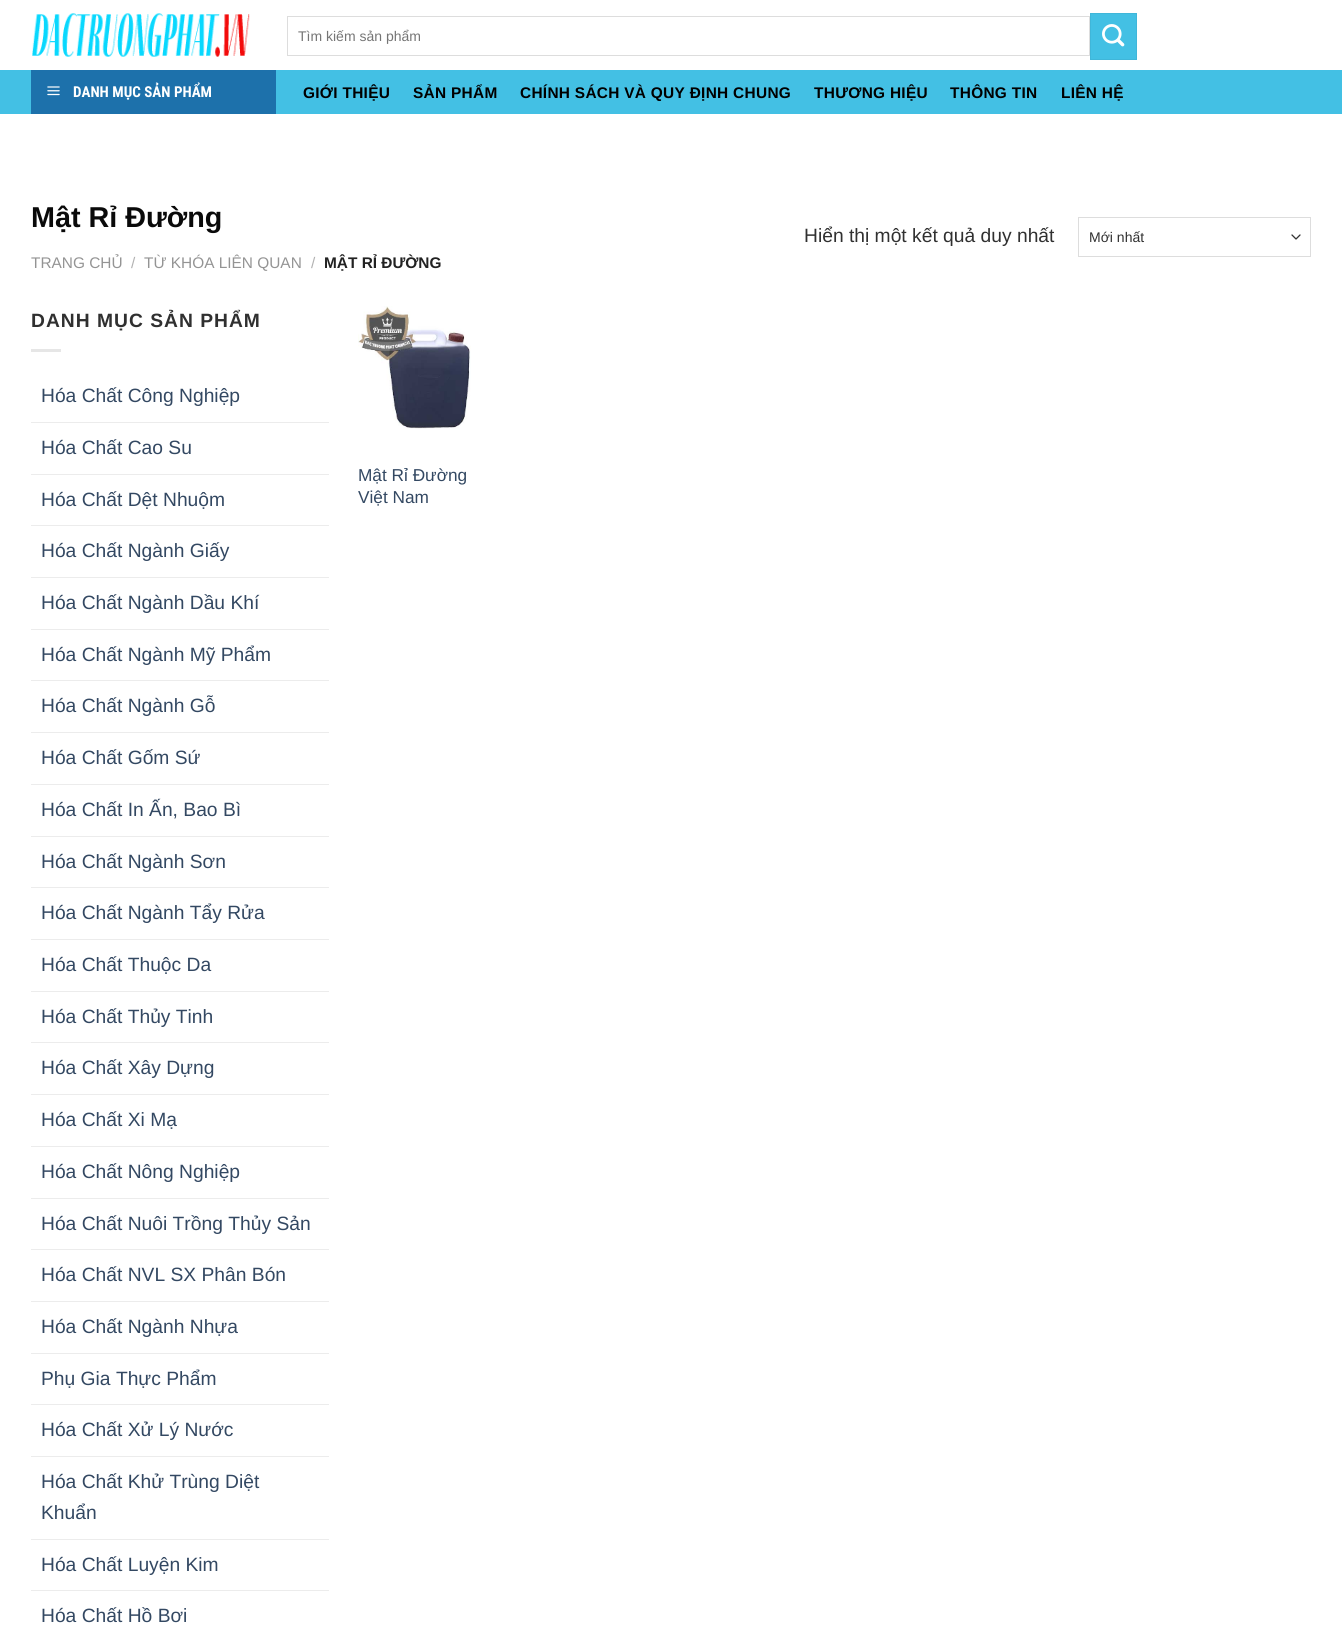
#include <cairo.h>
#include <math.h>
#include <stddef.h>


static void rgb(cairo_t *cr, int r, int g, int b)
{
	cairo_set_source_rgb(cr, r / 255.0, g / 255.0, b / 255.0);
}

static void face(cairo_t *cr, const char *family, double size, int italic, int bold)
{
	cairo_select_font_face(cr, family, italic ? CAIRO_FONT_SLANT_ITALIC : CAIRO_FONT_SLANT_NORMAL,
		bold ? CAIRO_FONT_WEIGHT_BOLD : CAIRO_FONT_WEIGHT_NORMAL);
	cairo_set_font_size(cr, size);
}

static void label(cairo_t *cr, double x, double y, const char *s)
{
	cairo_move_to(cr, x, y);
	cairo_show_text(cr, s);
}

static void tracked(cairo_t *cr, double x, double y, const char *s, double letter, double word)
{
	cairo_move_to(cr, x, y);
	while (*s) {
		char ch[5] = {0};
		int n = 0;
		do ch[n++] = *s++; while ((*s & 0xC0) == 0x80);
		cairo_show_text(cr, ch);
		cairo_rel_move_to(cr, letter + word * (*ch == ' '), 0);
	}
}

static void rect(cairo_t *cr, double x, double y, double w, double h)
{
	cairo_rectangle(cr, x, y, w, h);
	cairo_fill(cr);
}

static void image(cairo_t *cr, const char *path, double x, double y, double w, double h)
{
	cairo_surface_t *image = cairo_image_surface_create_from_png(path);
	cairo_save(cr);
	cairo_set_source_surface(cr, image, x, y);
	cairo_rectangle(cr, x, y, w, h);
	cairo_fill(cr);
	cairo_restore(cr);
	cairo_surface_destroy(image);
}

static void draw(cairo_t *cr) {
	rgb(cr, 255, 255, 255);
	cairo_paint(cr);
	image(cr, "image0.png", 32, 13, 218, 44);
	cairo_rectangle(cr, 287.5, 16.5, 802, 39);
	rgb(cr, 221, 221, 221);
	cairo_set_line_width(cr, 1);
	cairo_stroke(cr);
	face(cr, "Liberation Sans", 14, 0, 0);
	rgb(cr, 117, 117, 117);
	label(cr, 298, 41, "Tìm kiếm sản phẩm");
	rgb(cr, 67, 192, 228);
	cairo_rectangle(cr, 1090.5, 13.5, 46, 46);
	cairo_fill_preserve(cr);
	rgb(cr, 64, 182, 217);
	cairo_stroke(cr);
	image(cr, "image1.png", 1102, 24, 23, 23);
	rgb(cr, 67, 192, 228);
	rect(cr, 0, 70, 1342, 44);
	rgb(cr, 29, 113, 171);
	rect(cr, 31, 70, 245, 44);
	image(cr, "image2.png", 47, 86, 13, 10);
	face(cr, "Roboto Condensed", 15, 0, 1);
	rgb(cr, 255, 255, 255);
	label(cr, 73, 97, "DANH MỤC SẢN PHẨM");
	face(cr, "Liberation Sans", 15.4, 0, 1);
	rgb(cr, 0, 0, 0);
	tracked(cr, 303, 98, "GIỚI THIỆU", 0.3, 0);
	tracked(cr, 413, 98, "SẢN PHẨM", 0.3, 0);
	tracked(cr, 520, 98, "CHÍNH SÁCH VÀ QUY ĐỊNH CHUNG", 0.3, 0);
	tracked(cr, 814, 98, "THƯƠNG HIỆU", 0.3, 0);
	tracked(cr, 950, 98, "THÔNG TIN", 0.3, 0);
	tracked(cr, 1061, 98, "LIÊN HỆ", 0.3, 0);
	face(cr, "Liberation Sans", 28.75, 0, 1);
	rgb(cr, 10, 10, 10);
	label(cr, 31, 227, "Mật Rỉ Đường");
	face(cr, "Liberation Sans", 15.4, 0, 0);
	rgb(cr, 148, 148, 148);
	label(cr, 31, 268, "TRANG CHỦ");
	rgb(cr, 178, 178, 178);
	label(cr, 131, 268, "/");
	rgb(cr, 148, 148, 148);
	label(cr, 144, 268, "TỪ KHÓA LIÊN QUAN");
	rgb(cr, 178, 178, 178);
	label(cr, 311, 268, "/");
	face(cr, "Liberation Sans", 15.4, 0, 1);
	rgb(cr, 34, 34, 34);
	label(cr, 324, 268, "MẬT RỈ ĐƯỜNG");
	face(cr, "Liberation Sans", 19.25, 0, 0);
	rgb(cr, 48, 48, 48);
	label(cr, 804, 242, "Hiển thị một kết quả duy nhất");
	cairo_new_path(cr);
	cairo_move_to(cr, 1292, 235);
	cairo_line_to(cr, 1296, 239);
	cairo_line_to(cr, 1300, 235);
	rgb(cr, 51, 51, 51);
	cairo_set_line_width(cr, 1.3);
	cairo_set_line_cap(cr, CAIRO_LINE_CAP_ROUND);
	cairo_set_line_join(cr, CAIRO_LINE_JOIN_ROUND);
	cairo_stroke(cr);
	cairo_rectangle(cr, 1078.5, 217.5, 232, 39);
	rgb(cr, 221, 221, 221);
	cairo_set_line_width(cr, 1);
	cairo_set_line_cap(cr, CAIRO_LINE_CAP_BUTT);
	cairo_set_line_join(cr, CAIRO_LINE_JOIN_MITER);
	cairo_stroke(cr);
	face(cr, "Liberation Sans", 14, 0, 0);
	rgb(cr, 48, 48, 48);
	label(cr, 1089, 242, "Mới nhất");
	face(cr, "Liberation Sans", 19.25, 0, 1);
	tracked(cr, 31, 327, "DANH MỤC SẢN PHẨM", 1, 0);
	rgb(cr, 230, 230, 230);
	rect(cr, 31, 349, 30, 3);
	face(cr, "Liberation Sans", 19.25, 0, 0);
	rgb(cr, 51, 72, 98);
	label(cr, 41, 402, "Hóa Chất Công Nghiệp");
	rgb(cr, 236, 236, 236);
	rect(cr, 31, 422, 298, 1);
	rgb(cr, 51, 72, 98);
	label(cr, 41, 454, "Hóa Chất Cao Su");
	rgb(cr, 236, 236, 236);
	rect(cr, 31, 474, 298, 1);
	rgb(cr, 51, 72, 98);
	label(cr, 41, 506, "Hóa Chất Dệt Nhuộm");
	rgb(cr, 236, 236, 236);
	rect(cr, 31, 525, 298, 1);
	rgb(cr, 51, 72, 98);
	label(cr, 41, 557, "Hóa Chất Ngành Giấy");
	rgb(cr, 236, 236, 236);
	rect(cr, 31, 577, 298, 1);
	rgb(cr, 51, 72, 98);
	label(cr, 41, 609, "Hóa Chất Ngành Dầu Khí");
	rgb(cr, 236, 236, 236);
	rect(cr, 31, 629, 298, 1);
	rgb(cr, 51, 72, 98);
	label(cr, 41, 661, "Hóa Chất Ngành Mỹ Phẩm");
	rgb(cr, 236, 236, 236);
	rect(cr, 31, 680, 298, 1);
	rgb(cr, 51, 72, 98);
	label(cr, 41, 712, "Hóa Chất Ngành Gỗ");
	rgb(cr, 236, 236, 236);
	rect(cr, 31, 732, 298, 1);
	rgb(cr, 51, 72, 98);
	label(cr, 41, 764, "Hóa Chất Gốm Sứ");
	rgb(cr, 236, 236, 236);
	rect(cr, 31, 784, 298, 1);
	rgb(cr, 51, 72, 98);
	label(cr, 41, 816, "Hóa Chất In Ấn, Bao Bì");
	rgb(cr, 236, 236, 236);
	rect(cr, 31, 836, 298, 1);
	rgb(cr, 51, 72, 98);
	label(cr, 41, 868, "Hóa Chất Ngành Sơn");
	rgb(cr, 236, 236, 236);
	rect(cr, 31, 887, 298, 1);
	rgb(cr, 51, 72, 98);
	label(cr, 41, 919, "Hóa Chất Ngành Tẩy Rửa");
	rgb(cr, 236, 236, 236);
	rect(cr, 31, 939, 298, 1);
	rgb(cr, 51, 72, 98);
	label(cr, 41, 971, "Hóa Chất Thuộc Da");
	rgb(cr, 236, 236, 236);
	rect(cr, 31, 991, 298, 1);
	rgb(cr, 51, 72, 98);
	label(cr, 41, 1023, "Hóa Chất Thủy Tinh");
	rgb(cr, 236, 236, 236);
	rect(cr, 31, 1042, 298, 1);
	rgb(cr, 51, 72, 98);
	label(cr, 41, 1074, "Hóa Chất Xây Dựng");
	rgb(cr, 236, 236, 236);
	rect(cr, 31, 1094, 298, 1);
	rgb(cr, 51, 72, 98);
	label(cr, 41, 1126, "Hóa Chất Xi Mạ");
	rgb(cr, 236, 236, 236);
	rect(cr, 31, 1146, 298, 1);
	rgb(cr, 51, 72, 98);
	label(cr, 41, 1178, "Hóa Chất Nông Nghiệp");
	rgb(cr, 236, 236, 236);
	rect(cr, 31, 1198, 298, 1);
	rgb(cr, 51, 72, 98);
	label(cr, 41, 1230, "Hóa Chất Nuôi Trồng Thủy Sản");
	rgb(cr, 236, 236, 236);
	rect(cr, 31, 1249, 298, 1);
	rgb(cr, 51, 72, 98);
	label(cr, 41, 1281, "Hóa Chất NVL SX Phân Bón");
	rgb(cr, 236, 236, 236);
	rect(cr, 31, 1301, 298, 1);
	rgb(cr, 51, 72, 98);
	label(cr, 41, 1333, "Hóa Chất Ngành Nhựa");
	rgb(cr, 236, 236, 236);
	rect(cr, 31, 1353, 298, 1);
	rgb(cr, 51, 72, 98);
	label(cr, 41, 1385, "Phụ Gia Thực Phẩm");
	rgb(cr, 236, 236, 236);
	rect(cr, 31, 1404, 298, 1);
	rgb(cr, 51, 72, 98);
	label(cr, 41, 1436, "Hóa Chất Xử Lý Nước");
	rgb(cr, 236, 236, 236);
	rect(cr, 31, 1456, 298, 1);
	rgb(cr, 51, 72, 98);
	label(cr, 41, 1488, "Hóa Chất Khử Trùng Diệt");
	label(cr, 41, 1519, "Khuẩn");
	rgb(cr, 236, 236, 236);
	rect(cr, 31, 1539, 298, 1);
	rgb(cr, 51, 72, 98);
	label(cr, 41, 1571, "Hóa Chất Luyện Kim");
	rgb(cr, 236, 236, 236);
	rect(cr, 31, 1590, 298, 1);
	rgb(cr, 51, 72, 98);
	label(cr, 41, 1622, "Hóa Chất Hồ Bơi");
	image(cr, "image3.png", 358, 306, 113, 123);
	face(cr, "Liberation Sans", 17.25, 0, 0);
	label(cr, 358, 481, "Mật Rỉ Đường");
	label(cr, 358, 503, "Việt Nam");
}

int main(void) {
	cairo_surface_t *surface = cairo_image_surface_create(CAIRO_FORMAT_RGB24, 1342, 1639);
	cairo_t *cr = cairo_create(surface);
	cairo_font_options_t *options = cairo_font_options_create();
	cairo_font_options_set_hint_metrics(options, CAIRO_HINT_METRICS_OFF);
	cairo_font_options_set_hint_style(options, CAIRO_HINT_STYLE_NONE);
	cairo_set_font_options(cr, options);
	cairo_set_miter_limit(cr, 4);
	draw(cr);
	cairo_surface_write_to_png(surface, "render.png");
	cairo_font_options_destroy(options);
	cairo_destroy(cr);
	cairo_surface_destroy(surface);
	return 0;
}
